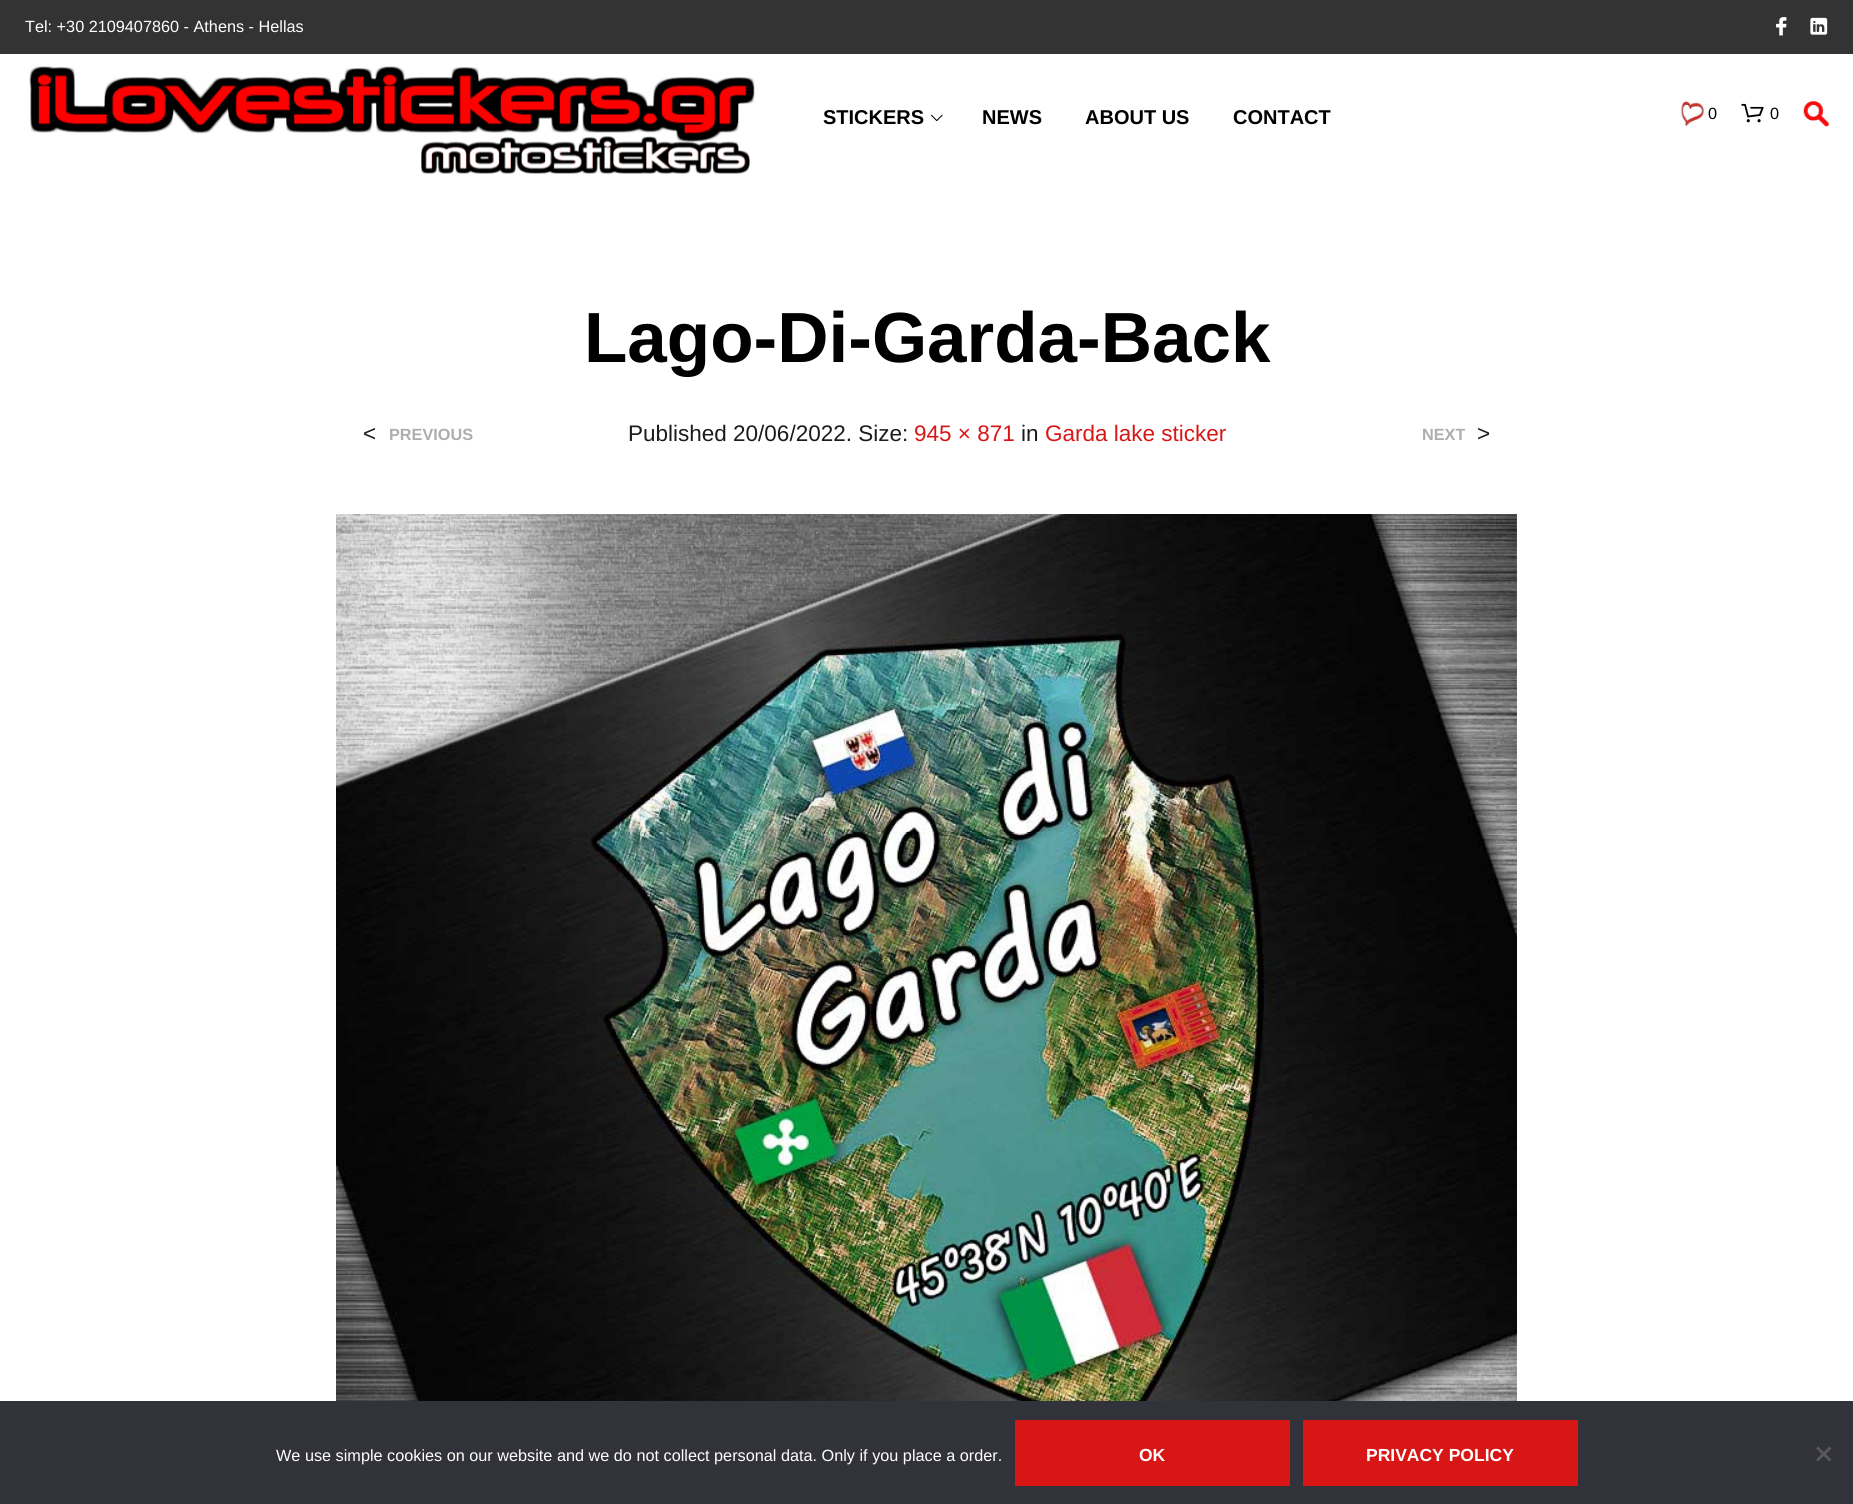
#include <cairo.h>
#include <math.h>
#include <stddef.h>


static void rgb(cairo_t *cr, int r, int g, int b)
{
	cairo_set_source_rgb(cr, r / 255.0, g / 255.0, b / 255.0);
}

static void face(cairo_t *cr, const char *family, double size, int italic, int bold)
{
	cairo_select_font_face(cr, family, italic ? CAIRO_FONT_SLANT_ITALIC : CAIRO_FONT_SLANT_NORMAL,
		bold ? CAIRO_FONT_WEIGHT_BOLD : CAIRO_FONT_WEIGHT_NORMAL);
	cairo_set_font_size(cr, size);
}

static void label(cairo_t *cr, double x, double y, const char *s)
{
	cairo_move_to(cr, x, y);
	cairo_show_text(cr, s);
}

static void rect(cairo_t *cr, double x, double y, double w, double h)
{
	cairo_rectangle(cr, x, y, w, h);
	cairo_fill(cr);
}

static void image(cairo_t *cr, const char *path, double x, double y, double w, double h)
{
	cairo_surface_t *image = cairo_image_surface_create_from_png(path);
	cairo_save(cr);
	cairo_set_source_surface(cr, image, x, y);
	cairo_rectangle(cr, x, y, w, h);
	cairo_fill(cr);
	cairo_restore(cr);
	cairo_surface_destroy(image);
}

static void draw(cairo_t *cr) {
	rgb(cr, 255, 255, 255);
	cairo_paint(cr);
	rgb(cr, 51, 51, 51);
	rect(cr, 0, 0, 1853, 54);
	face(cr, "Liberation Sans", 16.25, 0, 0);
	rgb(cr, 255, 255, 255);
	label(cr, 25, 32, "Tel: +30 2109407860 - Athens - Hellas");
	image(cr, "image0.png", 1776, 17, 11, 19);
	image(cr, "image1.png", 1810, 17, 18, 18);
	image(cr, "image2.png", 29, 66, 726, 108);
	face(cr, "Liberation Sans", 20, 0, 1);
	rgb(cr, 0, 0, 0);
	label(cr, 823, 124, "STICKERS");
	image(cr, "image3.png", 930, 114, 13, 8);
	label(cr, 982, 124, "NEWS");
	label(cr, 1085, 124, "ABOUT US");
	label(cr, 1233, 124, "CONTACT");
	image(cr, "image4.png", 1680, 101, 25, 26);
	face(cr, "Liberation Sans", 16.25, 0, 0);
	label(cr, 1708, 119, "0");
	image(cr, "image5.png", 1741, 103, 23, 20);
	label(cr, 1770, 119, "0");
	image(cr, "image6.png", 1803, 101, 26, 26);
	face(cr, "Liberation Sans", 71, 0, 1);
	label(cr, 584, 362, "Lago-Di-Garda-Back");
	face(cr, "Liberation Sans", 22.5, 0, 0);
	rgb(cr, 28, 27, 27);
	label(cr, 628, 441, "Published 20/06/2022. Size:");
	rgb(cr, 216, 22, 22);
	label(cr, 914, 441, "945 × 871");
	rgb(cr, 28, 27, 27);
	label(cr, 1021, 441, "in");
	rgb(cr, 216, 22, 22);
	label(cr, 1045, 441, "Garda lake sticker");
	rgb(cr, 28, 27, 27);
	label(cr, 363, 441, "<");
	face(cr, "Liberation Sans", 16.25, 0, 1);
	rgb(cr, 173, 173, 173);
	label(cr, 389, 440, "PREVIOUS");
	label(cr, 1422, 440, "NEXT");
	face(cr, "Liberation Sans", 22.5, 0, 0);
	rgb(cr, 28, 27, 27);
	label(cr, 1477, 441, ">");
	image(cr, "image7.png", 336, 514, 1181, 887);
	rgb(cr, 50, 50, 58);
	rect(cr, 0, 1401, 1853, 103);
	face(cr, "Liberation Sans", 16.25, 0, 0);
	rgb(cr, 255, 255, 255);
	label(cr, 276, 1461, "We use simple cookies on our website and we do not collect personal data. Only if you place a order.");
	rgb(cr, 216, 22, 22);
	rect(cr, 1015, 1420, 275, 66);
	face(cr, "Liberation Sans", 17.5, 0, 1);
	rgb(cr, 255, 255, 255);
	label(cr, 1139, 1461, "OK");
	rgb(cr, 216, 22, 22);
	rect(cr, 1303, 1420, 275, 66);
	rgb(cr, 255, 255, 255);
	label(cr, 1366, 1461, "PRIVACY POLICY");
	rgb(cr, 89, 89, 93);
	cairo_new_path(cr);
	cairo_move_to(cr, 1829.5, 1446.5);
	cairo_line_to(cr, 1831.5, 1448.5);
	cairo_line_to(cr, 1818, 1461.5);
	cairo_line_to(cr, 1816, 1459.5);
	cairo_close_path(cr);
	cairo_fill(cr);
	cairo_new_path(cr);
	cairo_move_to(cr, 1816, 1448.5);
	cairo_line_to(cr, 1818, 1446.5);
	cairo_line_to(cr, 1831.5, 1459.5);
	cairo_line_to(cr, 1829.5, 1461.5);
	cairo_close_path(cr);
	cairo_fill(cr);
}

int main(void) {
	cairo_surface_t *surface = cairo_image_surface_create(CAIRO_FORMAT_RGB24, 1853, 1504);
	cairo_t *cr = cairo_create(surface);
	cairo_font_options_t *options = cairo_font_options_create();
	cairo_font_options_set_hint_metrics(options, CAIRO_HINT_METRICS_OFF);
	cairo_font_options_set_hint_style(options, CAIRO_HINT_STYLE_NONE);
	cairo_set_font_options(cr, options);
	cairo_set_miter_limit(cr, 4);
	draw(cr);
	cairo_surface_write_to_png(surface, "render.png");
	cairo_font_options_destroy(options);
	cairo_destroy(cr);
	cairo_surface_destroy(surface);
	return 0;
}
